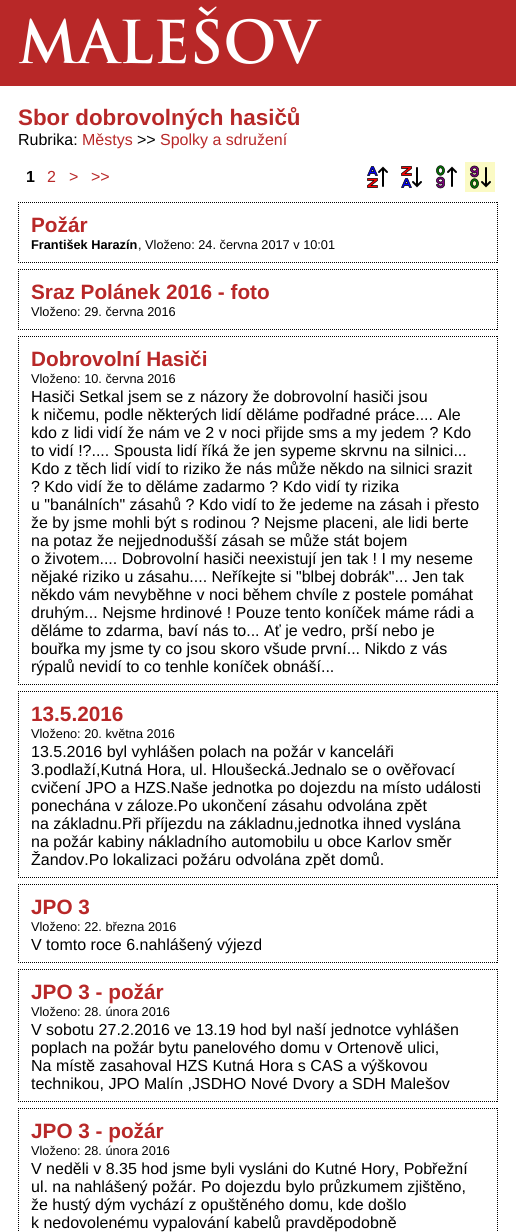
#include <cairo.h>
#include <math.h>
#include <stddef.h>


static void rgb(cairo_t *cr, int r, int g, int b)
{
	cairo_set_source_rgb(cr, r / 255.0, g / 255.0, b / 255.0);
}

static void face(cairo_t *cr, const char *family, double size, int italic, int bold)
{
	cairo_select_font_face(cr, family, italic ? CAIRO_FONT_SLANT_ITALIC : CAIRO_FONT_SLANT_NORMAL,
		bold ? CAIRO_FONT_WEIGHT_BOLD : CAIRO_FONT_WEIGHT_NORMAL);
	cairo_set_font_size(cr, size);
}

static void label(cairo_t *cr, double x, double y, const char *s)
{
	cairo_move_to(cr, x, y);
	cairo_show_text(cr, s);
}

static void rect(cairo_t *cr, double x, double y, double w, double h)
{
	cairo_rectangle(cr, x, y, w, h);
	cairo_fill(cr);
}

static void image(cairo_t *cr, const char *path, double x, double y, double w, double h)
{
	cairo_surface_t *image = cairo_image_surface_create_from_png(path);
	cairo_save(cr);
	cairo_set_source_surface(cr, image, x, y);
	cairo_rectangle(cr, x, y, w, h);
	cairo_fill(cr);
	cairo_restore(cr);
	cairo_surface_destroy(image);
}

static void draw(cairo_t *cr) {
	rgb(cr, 255, 255, 255);
	cairo_paint(cr);
	rgb(cr, 184, 40, 40);
	rect(cr, 0, 0, 516, 86);
	image(cr, "image0.png", 18, 6, 304, 58);
	face(cr, "Liberation Sans", 22.4, 0, 1);
	label(cr, 18, 125, "Sbor dobrovolných hasičů");
	face(cr, "Liberation Sans", 16, 0, 0);
	rgb(cr, 0, 0, 0);
	label(cr, 18, 145, "Rubrika:");
	rgb(cr, 184, 40, 40);
	label(cr, 82, 145, "Městys");
	rgb(cr, 0, 0, 0);
	label(cr, 137, 145, ">>");
	rgb(cr, 184, 40, 40);
	label(cr, 160, 145, "Spolky a sdružení");
	face(cr, "Liberation Sans", 16, 0, 1);
	rgb(cr, 0, 0, 0);
	label(cr, 26, 182, "1");
	face(cr, "Liberation Sans", 16, 0, 0);
	rgb(cr, 184, 40, 40);
	label(cr, 47, 182, "2");
	label(cr, 69, 182, ">");
	label(cr, 91, 182, ">>");
	image(cr, "image1.png", 367, 166, 21, 22);
	image(cr, "image2.png", 401, 166, 21, 22);
	image(cr, "image3.png", 436, 165, 21, 24);
	rgb(cr, 251, 250, 196);
	rect(cr, 465, 162, 30, 30);
	image(cr, "image4.png", 470, 165, 21, 24);
	cairo_new_path(cr);
	cairo_move_to(cr, 18, 202.5);
	cairo_line_to(cr, 498, 202.5);
	rgb(cr, 0, 0, 0);
	cairo_set_line_width(cr, 1);
	cairo_set_dash(cr, (double[]){1, 1}, 2, 0);
	cairo_stroke(cr);
	cairo_new_path(cr);
	cairo_move_to(cr, 497.5, 202);
	cairo_line_to(cr, 497.5, 263);
	cairo_stroke(cr);
	cairo_new_path(cr);
	cairo_move_to(cr, 18, 262.5);
	cairo_line_to(cr, 498, 262.5);
	cairo_stroke(cr);
	cairo_new_path(cr);
	cairo_move_to(cr, 18.5, 202);
	cairo_line_to(cr, 18.5, 263);
	cairo_stroke(cr);
	face(cr, "Liberation Sans", 20.75, 0, 1);
	rgb(cr, 184, 40, 40);
	label(cr, 31, 232, "Požár");
	face(cr, "Liberation Sans", 12.75, 0, 1);
	rgb(cr, 0, 0, 0);
	label(cr, 31, 249, "František Harazín");
	face(cr, "Liberation Sans", 12.75, 0, 0);
	label(cr, 138, 249, ", Vloženo: 24. června 2017 v 10:01");
	cairo_new_path(cr);
	cairo_move_to(cr, 18, 269.5);
	cairo_line_to(cr, 498, 269.5);
	cairo_stroke(cr);
	cairo_new_path(cr);
	cairo_move_to(cr, 497.5, 269);
	cairo_line_to(cr, 497.5, 330);
	cairo_stroke(cr);
	cairo_new_path(cr);
	cairo_move_to(cr, 18, 329.5);
	cairo_line_to(cr, 498, 329.5);
	cairo_stroke(cr);
	cairo_new_path(cr);
	cairo_move_to(cr, 18.5, 269);
	cairo_line_to(cr, 18.5, 330);
	cairo_stroke(cr);
	face(cr, "Liberation Sans", 20.75, 0, 1);
	rgb(cr, 184, 40, 40);
	label(cr, 31, 299, "Sraz Polánek 2016 - foto");
	face(cr, "Liberation Sans", 12.75, 0, 0);
	rgb(cr, 0, 0, 0);
	label(cr, 31, 316, "Vloženo: 29. června 2016");
	cairo_new_path(cr);
	cairo_move_to(cr, 18, 336.5);
	cairo_line_to(cr, 498, 336.5);
	cairo_stroke(cr);
	cairo_new_path(cr);
	cairo_move_to(cr, 497.5, 336);
	cairo_line_to(cr, 497.5, 685);
	cairo_stroke(cr);
	cairo_new_path(cr);
	cairo_move_to(cr, 18, 684.5);
	cairo_line_to(cr, 498, 684.5);
	cairo_stroke(cr);
	cairo_new_path(cr);
	cairo_move_to(cr, 18.5, 336);
	cairo_line_to(cr, 18.5, 685);
	cairo_stroke(cr);
	face(cr, "Liberation Sans", 20.75, 0, 1);
	rgb(cr, 184, 40, 40);
	label(cr, 31, 366, "Dobrovolní Hasiči");
	face(cr, "Liberation Sans", 12.75, 0, 0);
	rgb(cr, 0, 0, 0);
	label(cr, 31, 383, "Vloženo: 10. června 2016");
	face(cr, "Liberation Sans", 16, 0, 0);
	label(cr, 31, 402, "Hasiči Setkal jsem se z názory že dobrovolní hasiči jsou");
	label(cr, 31, 420, "k ničemu, podle některých lidí děláme podřadné práce.... Ale");
	label(cr, 31, 438, "kdo z lidi vidí že nám ve 2 v noci přijde sms a my jedem ? Kdo");
	label(cr, 31, 456, "to vidí !?.... Spousta lidí říká že jen sypeme skrvnu na silnici...");
	label(cr, 31, 474, "Kdo z těch lidí vidí to riziko že nás může někdo na silnici srazit");
	label(cr, 31, 492, "? Kdo vidí že to děláme zadarmo ? Kdo vidí ty rizika");
	label(cr, 31, 510, "u \"banálních\" zásahů ? Kdo vidí to že jedeme na zásah i přesto");
	label(cr, 31, 528, "že by jsme mohli být s rodinou ? Nejsme placeni, ale lidi berte");
	label(cr, 31, 546, "na potaz že nejjednodušší zásah se může stát bojem");
	label(cr, 31, 564, "o životem.... Dobrovolní hasiči neexistují jen tak ! I my neseme");
	label(cr, 31, 582, "nějaké riziko u zásahu.... Neříkejte si \"blbej dobrák\"... Jen tak");
	label(cr, 31, 600, "někdo vám nevyběhne v noci během chvíle z postele pomáhat");
	label(cr, 31, 618, "druhým... Nejsme hrdinové ! Pouze tento koníček máme rádi a");
	label(cr, 31, 636, "děláme to zdarma, baví nás to... Ať je vedro, prší nebo je");
	label(cr, 31, 654, "bouřka my jsme ty co jsou skoro všude první... Nikdo z vás");
	label(cr, 31, 672, "rýpalů nevidí to co tenhle koníček obnáší...");
	cairo_new_path(cr);
	cairo_move_to(cr, 18, 691.5);
	cairo_line_to(cr, 498, 691.5);
	cairo_stroke(cr);
	cairo_new_path(cr);
	cairo_move_to(cr, 497.5, 691);
	cairo_line_to(cr, 497.5, 878);
	cairo_stroke(cr);
	cairo_new_path(cr);
	cairo_move_to(cr, 18, 877.5);
	cairo_line_to(cr, 498, 877.5);
	cairo_stroke(cr);
	cairo_new_path(cr);
	cairo_move_to(cr, 18.5, 691);
	cairo_line_to(cr, 18.5, 878);
	cairo_stroke(cr);
	face(cr, "Liberation Sans", 20.75, 0, 1);
	rgb(cr, 184, 40, 40);
	label(cr, 31, 721, "13.5.2016");
	face(cr, "Liberation Sans", 12.75, 0, 0);
	rgb(cr, 0, 0, 0);
	label(cr, 31, 738, "Vloženo: 20. května 2016");
	face(cr, "Liberation Sans", 16, 0, 0);
	label(cr, 31, 757, "13.5.2016 byl vyhlášen polach na požár v kanceláři");
	label(cr, 31, 775, "3.podlaží,Kutná Hora, ul. Hloušecká.Jednalo se o ověřovací");
	label(cr, 31, 793, "cvičení JPO a HZS.Naše jednotka po dojezdu na místo události");
	label(cr, 31, 811, "ponechána v záloze.Po ukončení zásahu odvolána zpět");
	label(cr, 31, 829, "na základnu.Při příjezdu na základnu,jednotka ihned vyslána");
	label(cr, 31, 847, "na požár kabiny nákladního automobilu u obce Karlov směr");
	label(cr, 31, 865, "Žandov.Po lokalizaci požáru odvolána zpět domů.");
	cairo_new_path(cr);
	cairo_move_to(cr, 18, 884.5);
	cairo_line_to(cr, 498, 884.5);
	cairo_stroke(cr);
	cairo_new_path(cr);
	cairo_move_to(cr, 497.5, 884);
	cairo_line_to(cr, 497.5, 963);
	cairo_stroke(cr);
	cairo_new_path(cr);
	cairo_move_to(cr, 18, 962.5);
	cairo_line_to(cr, 498, 962.5);
	cairo_stroke(cr);
	cairo_new_path(cr);
	cairo_move_to(cr, 18.5, 884);
	cairo_line_to(cr, 18.5, 963);
	cairo_stroke(cr);
	face(cr, "Liberation Sans", 20.75, 0, 1);
	rgb(cr, 184, 40, 40);
	label(cr, 31, 914, "JPO 3");
	face(cr, "Liberation Sans", 12.75, 0, 0);
	rgb(cr, 0, 0, 0);
	label(cr, 31, 931, "Vloženo: 22. března 2016");
	face(cr, "Liberation Sans", 16, 0, 0);
	label(cr, 31, 950, "V tomto roce 6.nahlášený výjezd");
	cairo_new_path(cr);
	cairo_move_to(cr, 18, 969.5);
	cairo_line_to(cr, 498, 969.5);
	cairo_stroke(cr);
	cairo_new_path(cr);
	cairo_move_to(cr, 497.5, 969);
	cairo_line_to(cr, 497.5, 1102);
	cairo_stroke(cr);
	cairo_new_path(cr);
	cairo_move_to(cr, 18, 1101.5);
	cairo_line_to(cr, 498, 1101.5);
	cairo_stroke(cr);
	cairo_new_path(cr);
	cairo_move_to(cr, 18.5, 969);
	cairo_line_to(cr, 18.5, 1102);
	cairo_stroke(cr);
	face(cr, "Liberation Sans", 20.75, 0, 1);
	rgb(cr, 184, 40, 40);
	label(cr, 31, 999, "JPO 3 - požár");
	face(cr, "Liberation Sans", 12.75, 0, 0);
	rgb(cr, 0, 0, 0);
	label(cr, 31, 1016, "Vloženo: 28. února 2016");
	face(cr, "Liberation Sans", 16, 0, 0);
	label(cr, 31, 1035, "V sobotu 27.2.2016 ve 13.19 hod byl naší jednotce vyhlášen");
	label(cr, 31, 1053, "poplach na požár bytu panelového domu v Ortenově ulici,");
	label(cr, 31, 1071, "Na místě zasahoval HZS Kutná Hora s CAS a výškovou");
	label(cr, 31, 1089, "technikou, JPO Malín ,JSDHO Nové Dvory a SDH Malešov");
	cairo_new_path(cr);
	cairo_move_to(cr, 18, 1108.5);
	cairo_line_to(cr, 498, 1108.5);
	cairo_stroke(cr);
	cairo_new_path(cr);
	cairo_move_to(cr, 497.5, 1108);
	cairo_line_to(cr, 497.5, 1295);
	cairo_stroke(cr);
	cairo_new_path(cr);
	cairo_move_to(cr, 18.5, 1108);
	cairo_line_to(cr, 18.5, 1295);
	cairo_stroke(cr);
	face(cr, "Liberation Sans", 20.75, 0, 1);
	rgb(cr, 184, 40, 40);
	label(cr, 31, 1138, "JPO 3 - požár");
	face(cr, "Liberation Sans", 12.75, 0, 0);
	rgb(cr, 0, 0, 0);
	label(cr, 31, 1155, "Vloženo: 28. února 2016");
	face(cr, "Liberation Sans", 16, 0, 0);
	label(cr, 31, 1174, "V neděli v 8.35 hod jsme byli vysláni do Kutné Hory, Pobřežní");
	label(cr, 31, 1192, "ul. na nahlášený požár. Po dojezdu bylo průzkumem zjištěno,");
	label(cr, 31, 1210, "že hustý dým vychází z opuštěného domu, kde došlo");
	label(cr, 31, 1228, "k nedovolenému vypalování kabelů pravděpodobně");
}

int main(void) {
	cairo_surface_t *surface = cairo_image_surface_create(CAIRO_FORMAT_RGB24, 516, 1232);
	cairo_t *cr = cairo_create(surface);
	cairo_font_options_t *options = cairo_font_options_create();
	cairo_font_options_set_hint_metrics(options, CAIRO_HINT_METRICS_OFF);
	cairo_font_options_set_hint_style(options, CAIRO_HINT_STYLE_NONE);
	cairo_set_font_options(cr, options);
	cairo_set_miter_limit(cr, 4);
	draw(cr);
	cairo_surface_write_to_png(surface, "render.png");
	cairo_font_options_destroy(options);
	cairo_destroy(cr);
	cairo_surface_destroy(surface);
	return 0;
}
